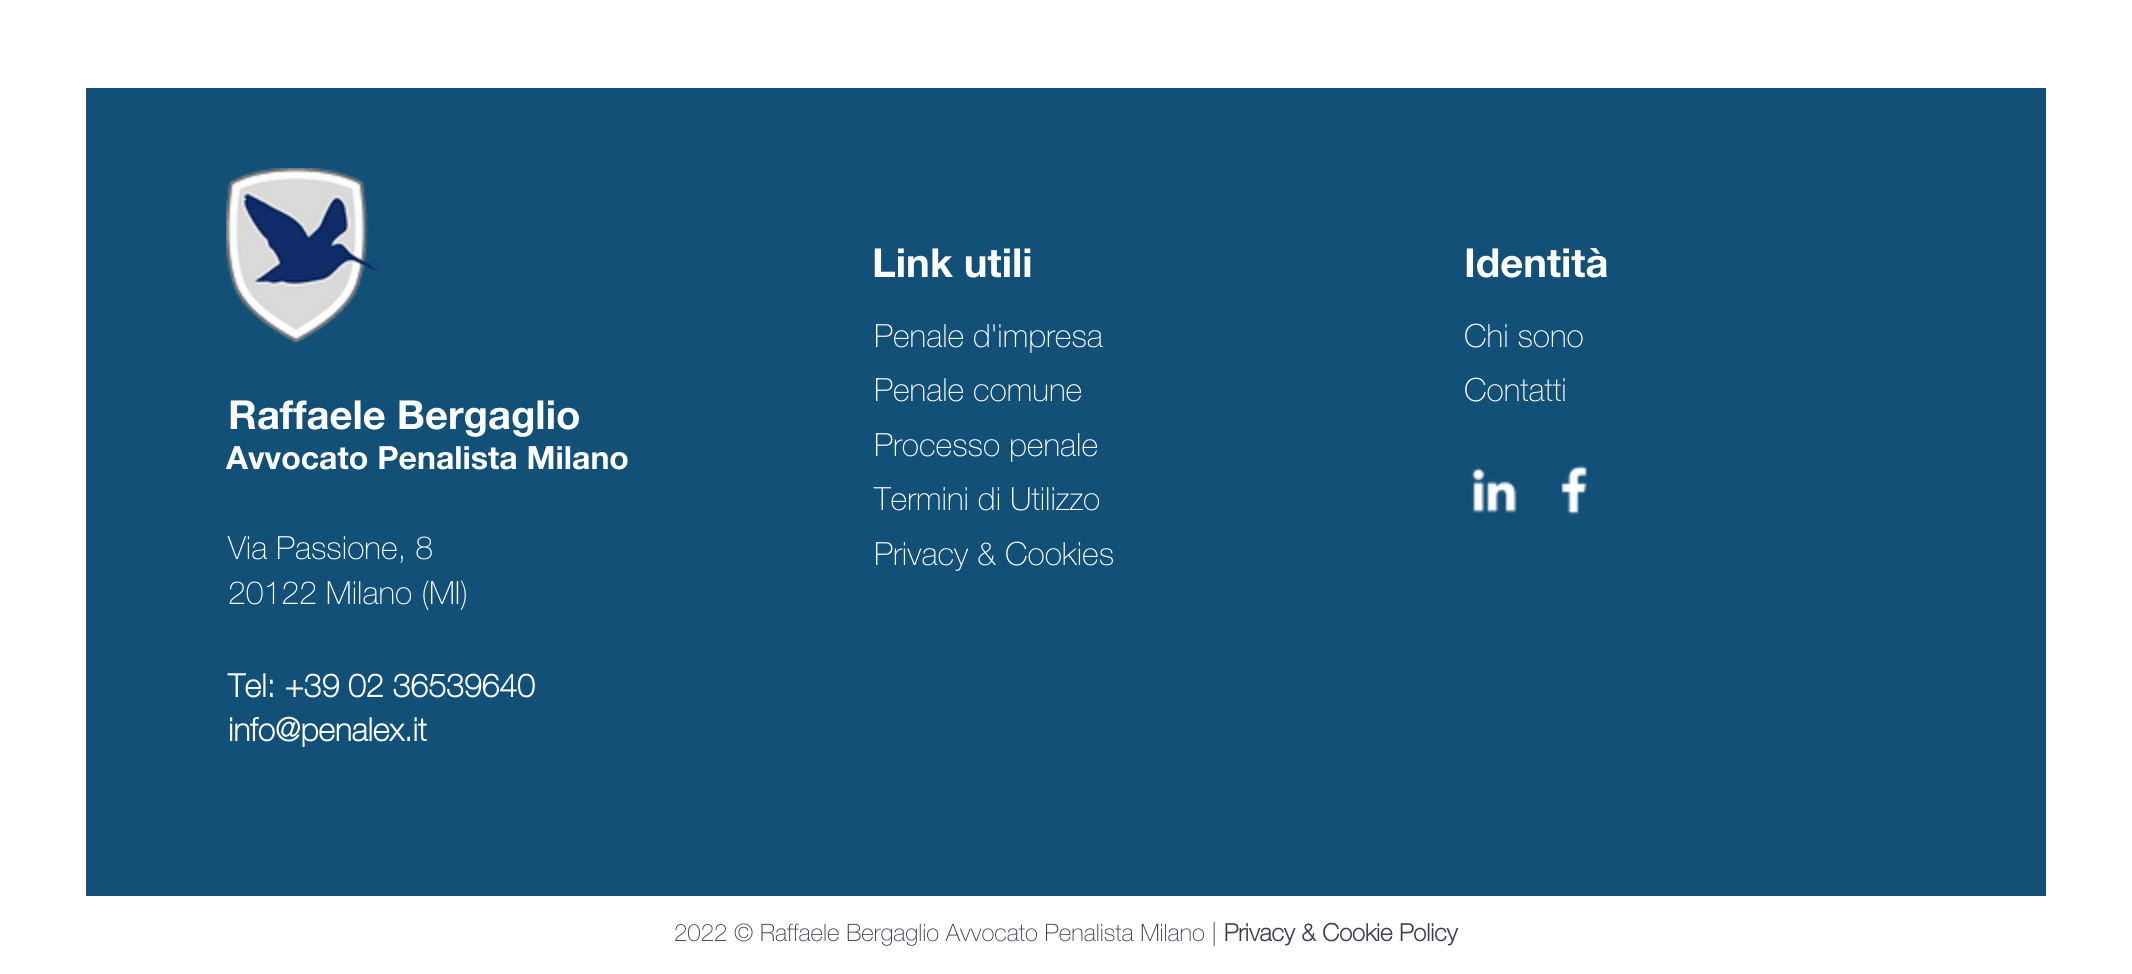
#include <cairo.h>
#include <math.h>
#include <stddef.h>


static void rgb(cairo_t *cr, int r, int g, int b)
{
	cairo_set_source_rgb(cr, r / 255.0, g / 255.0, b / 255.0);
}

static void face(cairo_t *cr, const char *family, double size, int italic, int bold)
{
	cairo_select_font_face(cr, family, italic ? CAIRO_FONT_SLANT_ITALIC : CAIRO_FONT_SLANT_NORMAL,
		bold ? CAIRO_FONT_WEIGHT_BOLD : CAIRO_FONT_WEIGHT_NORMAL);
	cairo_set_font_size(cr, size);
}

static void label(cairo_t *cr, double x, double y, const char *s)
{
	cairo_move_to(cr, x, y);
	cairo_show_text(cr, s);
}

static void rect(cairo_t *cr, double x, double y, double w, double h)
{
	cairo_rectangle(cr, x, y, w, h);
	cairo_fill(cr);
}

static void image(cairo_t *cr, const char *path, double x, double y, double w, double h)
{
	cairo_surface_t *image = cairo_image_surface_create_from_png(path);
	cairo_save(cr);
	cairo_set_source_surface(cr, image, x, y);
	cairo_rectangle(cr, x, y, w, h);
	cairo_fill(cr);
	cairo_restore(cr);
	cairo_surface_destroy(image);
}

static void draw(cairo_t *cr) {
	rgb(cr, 255, 255, 255);
	cairo_paint(cr);
	rgb(cr, 18, 80, 119);
	rect(cr, 86, 88, 1960, 808);
	face(cr, "Helvetica Neue", 40, 0, 1);
	rgb(cr, 255, 255, 255);
	label(cr, 872, 277, "Link utili");
	face(cr, "Helvetica Neue Thin", 32, 0, 0);
	label(cr, 874, 347, "Penale d'impresa");
	label(cr, 874, 401, "Penale comune");
	label(cr, 874, 456, "Processo penale");
	label(cr, 874, 510, "Termini di Utilizzo");
	label(cr, 874, 565, "Privacy & Cookies");
	face(cr, "Helvetica Neue", 40, 0, 1);
	label(cr, 1464, 277, "Identità");
	face(cr, "Helvetica Neue Thin", 32, 0, 0);
	label(cr, 1464, 347, "Chi sono");
	label(cr, 1464, 401, "Contatti");
	image(cr, "image0.png", 1471, 467, 46, 46);
	image(cr, "image1.png", 1561, 465, 27, 50);
	image(cr, "image2.png", 226, 168, 156, 174);
	face(cr, "Helvetica Neue", 40, 0, 1);
	label(cr, 228, 429, "Raffaele Bergaglio");
	face(cr, "Helvetica Neue", 32, 0, 1);
	label(cr, 226, 469, "Avvocato Penalista Milano");
	face(cr, "Helvetica Neue Thin", 32, 0, 0);
	label(cr, 228, 559, "Via Passione, 8");
	label(cr, 228, 604, "20122 Milano (MI)");
	face(cr, "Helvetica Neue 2", 32, 0, 1);
	label(cr, 228, 697, "Tel: +39 02 36539640");
	label(cr, 228, 741, "info@penalex.it");
	face(cr, "Helvetica Neue Thin", 24, 0, 0);
	rgb(cr, 60, 60, 78);
	label(cr, 674, 941, "2022 © Raffaele Bergaglio Avvocato Penalista Milano |");
	face(cr, "Helvetica Neue 2", 24, 0, 1);
	label(cr, 1224, 941, "Privacy & Cookie Policy");
}

int main(void) {
	cairo_surface_t *surface = cairo_image_surface_create(CAIRO_FORMAT_RGB24, 2132, 974);
	cairo_t *cr = cairo_create(surface);
	cairo_font_options_t *options = cairo_font_options_create();
	cairo_font_options_set_hint_metrics(options, CAIRO_HINT_METRICS_OFF);
	cairo_font_options_set_hint_style(options, CAIRO_HINT_STYLE_NONE);
	cairo_set_font_options(cr, options);
	cairo_set_miter_limit(cr, 4);
	draw(cr);
	cairo_surface_write_to_png(surface, "render.png");
	cairo_font_options_destroy(options);
	cairo_destroy(cr);
	cairo_surface_destroy(surface);
	return 0;
}
